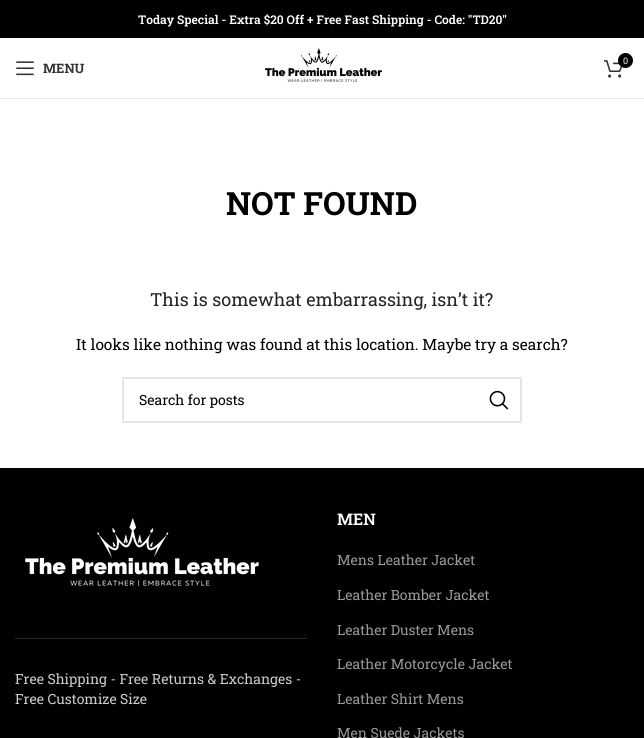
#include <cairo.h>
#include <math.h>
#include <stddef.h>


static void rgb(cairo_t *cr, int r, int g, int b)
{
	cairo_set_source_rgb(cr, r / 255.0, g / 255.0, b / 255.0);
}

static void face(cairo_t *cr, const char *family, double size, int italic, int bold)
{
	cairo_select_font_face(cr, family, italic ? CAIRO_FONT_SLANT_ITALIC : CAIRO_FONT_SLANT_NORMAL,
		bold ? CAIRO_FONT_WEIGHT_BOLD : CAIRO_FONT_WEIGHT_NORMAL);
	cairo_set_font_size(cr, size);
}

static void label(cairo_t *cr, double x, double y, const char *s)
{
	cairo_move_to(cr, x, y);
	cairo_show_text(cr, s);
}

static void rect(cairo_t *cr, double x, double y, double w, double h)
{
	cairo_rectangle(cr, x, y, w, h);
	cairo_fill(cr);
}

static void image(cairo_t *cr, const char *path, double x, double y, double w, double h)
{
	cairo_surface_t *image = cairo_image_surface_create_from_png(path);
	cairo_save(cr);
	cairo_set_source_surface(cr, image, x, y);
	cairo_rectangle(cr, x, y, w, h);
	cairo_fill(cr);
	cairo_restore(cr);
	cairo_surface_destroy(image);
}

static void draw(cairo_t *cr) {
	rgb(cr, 255, 255, 255);
	cairo_paint(cr);
	rgb(cr, 0, 0, 0);
	rect(cr, 0, 0, 644, 38);
	face(cr, "Roboto Slab SemiBold", 12, 0, 0);
	rgb(cr, 255, 255, 255);
	label(cr, 138, 24, "Today Special - Extra $20 Off + Free Fast Shipping - Code: \"TD20\"");
	rgb(cr, 232, 232, 232);
	rect(cr, 0, 98, 644, 1);
	image(cr, "image0.png", 265, 48, 117, 35);
	image(cr, "image1.png", 604, 60, 19, 18);
	rgb(cr, 0, 0, 0);
	cairo_arc(cr, 625.5, 60.5, 7.5, 0, 2 * M_PI);
	cairo_fill(cr);
	face(cr, "Roboto Slab", 9, 0, 0);
	rgb(cr, 255, 255, 255);
	label(cr, 623, 64, "0");
	image(cr, "image2.png", 16, 61, 18, 15);
	face(cr, "Roboto Slab", 13, 0, 1);
	rgb(cr, 51, 51, 51);
	label(cr, 43, 73, "MENU");
	face(cr, "Roboto Slab", 32, 0, 1);
	rgb(cr, 0, 0, 0);
	label(cr, 226, 215, "NOT FOUND");
	face(cr, "Roboto Slab", 18, 0, 0);
	rgb(cr, 36, 36, 36);
	label(cr, 150, 306, "This is somewhat embarrassing, isn’t it?");
	face(cr, "Roboto Slab", 15.4, 0, 0);
	rgb(cr, 0, 0, 0);
	label(cr, 76, 350, "It looks like nothing was found at this location. Maybe try a search?");
	cairo_rectangle(cr, 123, 378, 398, 44);
	rgb(cr, 230, 230, 230);
	cairo_stroke(cr);
	face(cr, "Roboto Slab", 14, 0, 0);
	rgb(cr, 0, 0, 0);
	label(cr, 139, 405, "Search for posts");
	image(cr, "image3.png", 489, 390, 20, 20);
	rect(cr, 0, 468, 644, 270);
	rgb(cr, 38, 38, 38);
	rect(cr, 15, 638, 292, 1);
	image(cr, "image4.png", 25, 518, 234, 69);
	rgb(cr, 204, 204, 204);
	label(cr, 15, 684, "Free Shipping - Free Returns & Exchanges -");
	label(cr, 15, 704, "Free Customize Size");
	face(cr, "Roboto Slab SemiBold", 16, 0, 0);
	rgb(cr, 255, 255, 255);
	label(cr, 337, 525, "MEN");
	face(cr, "Roboto Slab", 14, 0, 0);
	rgb(cr, 153, 153, 153);
	label(cr, 337, 565, "Mens Leather Jacket");
	label(cr, 337, 600, "Leather Bomber Jacket");
	label(cr, 337, 635, "Leather Duster Mens");
	label(cr, 337, 669, "Leather Motorcycle Jacket");
	label(cr, 337, 704, "Leather Shirt Mens");
	label(cr, 337, 738, "Men Suede Jackets");
}

int main(void) {
	cairo_surface_t *surface = cairo_image_surface_create(CAIRO_FORMAT_RGB24, 644, 738);
	cairo_t *cr = cairo_create(surface);
	cairo_font_options_t *options = cairo_font_options_create();
	cairo_font_options_set_hint_metrics(options, CAIRO_HINT_METRICS_OFF);
	cairo_font_options_set_hint_style(options, CAIRO_HINT_STYLE_NONE);
	cairo_set_font_options(cr, options);
	cairo_set_miter_limit(cr, 4);
	draw(cr);
	cairo_surface_write_to_png(surface, "render.png");
	cairo_font_options_destroy(options);
	cairo_destroy(cr);
	cairo_surface_destroy(surface);
	return 0;
}
